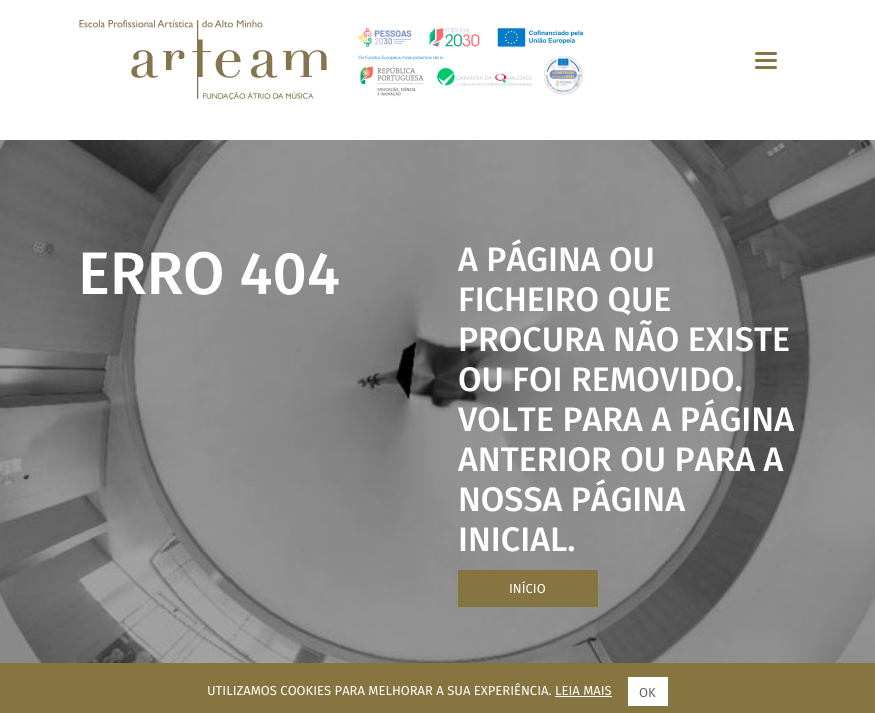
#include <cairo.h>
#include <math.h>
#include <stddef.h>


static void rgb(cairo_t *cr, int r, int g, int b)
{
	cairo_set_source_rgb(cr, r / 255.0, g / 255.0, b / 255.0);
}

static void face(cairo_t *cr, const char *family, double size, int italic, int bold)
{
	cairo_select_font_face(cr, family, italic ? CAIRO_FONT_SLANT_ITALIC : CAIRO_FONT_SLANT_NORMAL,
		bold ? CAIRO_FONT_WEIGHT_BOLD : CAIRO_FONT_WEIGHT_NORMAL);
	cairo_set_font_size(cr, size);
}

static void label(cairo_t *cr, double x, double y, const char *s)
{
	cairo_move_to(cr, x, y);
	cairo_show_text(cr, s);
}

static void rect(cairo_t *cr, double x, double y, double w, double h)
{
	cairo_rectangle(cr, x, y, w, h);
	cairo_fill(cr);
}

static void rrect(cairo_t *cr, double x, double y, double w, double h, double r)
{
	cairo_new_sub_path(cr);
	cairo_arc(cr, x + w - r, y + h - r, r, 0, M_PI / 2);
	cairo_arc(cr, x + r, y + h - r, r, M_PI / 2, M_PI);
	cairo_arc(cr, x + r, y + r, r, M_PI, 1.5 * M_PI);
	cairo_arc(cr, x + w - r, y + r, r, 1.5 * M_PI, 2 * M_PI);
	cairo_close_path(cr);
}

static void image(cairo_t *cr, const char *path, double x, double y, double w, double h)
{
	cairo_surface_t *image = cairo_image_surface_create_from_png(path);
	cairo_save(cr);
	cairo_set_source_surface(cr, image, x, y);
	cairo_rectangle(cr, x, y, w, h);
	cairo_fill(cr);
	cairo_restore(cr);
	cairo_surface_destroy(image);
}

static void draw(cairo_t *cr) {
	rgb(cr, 255, 255, 255);
	cairo_paint(cr);
	image(cr, "image0.png", 79, 20, 504, 80);
	rgb(cr, 134, 117, 64);
	rrect(cr, 755, 52, 22, 3, 1.5);
	cairo_fill(cr);
	rrect(cr, 755, 59, 22, 3, 1.5);
	cairo_fill(cr);
	rrect(cr, 755, 66, 22, 3, 1.5);
	cairo_fill(cr);
	image(cr, "image1.png", 0, 140, 875, 523);
	face(cr, "Fira Sans Medium", 60, 0, 0);
	rgb(cr, 255, 255, 255);
	label(cr, 78, 294, "ERRO 404");
	face(cr, "Fira Sans Medium", 34, 0, 0);
	label(cr, 458, 271, "A PÁGINA OU");
	label(cr, 458, 311, "FICHEIRO QUE");
	label(cr, 458, 351, "PROCURA NÃO EXISTE");
	label(cr, 458, 391, "OU FOI REMOVIDO.");
	label(cr, 458, 431, "VOLTE PARA A PÁGINA");
	label(cr, 458, 471, "ANTERIOR OU PARA A");
	label(cr, 458, 511, "NOSSA PÁGINA");
	label(cr, 458, 551, "INICIAL.");
	rgb(cr, 134, 117, 64);
	rect(cr, 458, 570, 140, 37);
	face(cr, "Fira Sans", 13, 0, 0);
	rgb(cr, 255, 255, 255);
	label(cr, 509, 593, "INÍCIO");
	rgb(cr, 134, 117, 64);
	rect(cr, 0, 663, 875, 50);
	rgb(cr, 255, 255, 255);
	label(cr, 207, 695, "UTILIZAMOS COOKIES PARA MELHORAR A SUA EXPERIÊNCIA. LEIA MAIS");
	rect(cr, 628, 677, 40, 29);
	rgb(cr, 102, 102, 102);
	label(cr, 639, 697, "OK");
	rgb(cr, 255, 255, 255);
	rect(cr, 555, 696, 57, 1);
}

int main(void) {
	cairo_surface_t *surface = cairo_image_surface_create(CAIRO_FORMAT_RGB24, 875, 713);
	cairo_t *cr = cairo_create(surface);
	cairo_font_options_t *options = cairo_font_options_create();
	cairo_font_options_set_hint_metrics(options, CAIRO_HINT_METRICS_OFF);
	cairo_font_options_set_hint_style(options, CAIRO_HINT_STYLE_NONE);
	cairo_set_font_options(cr, options);
	cairo_set_miter_limit(cr, 4);
	draw(cr);
	cairo_surface_write_to_png(surface, "render.png");
	cairo_font_options_destroy(options);
	cairo_destroy(cr);
	cairo_surface_destroy(surface);
	return 0;
}
